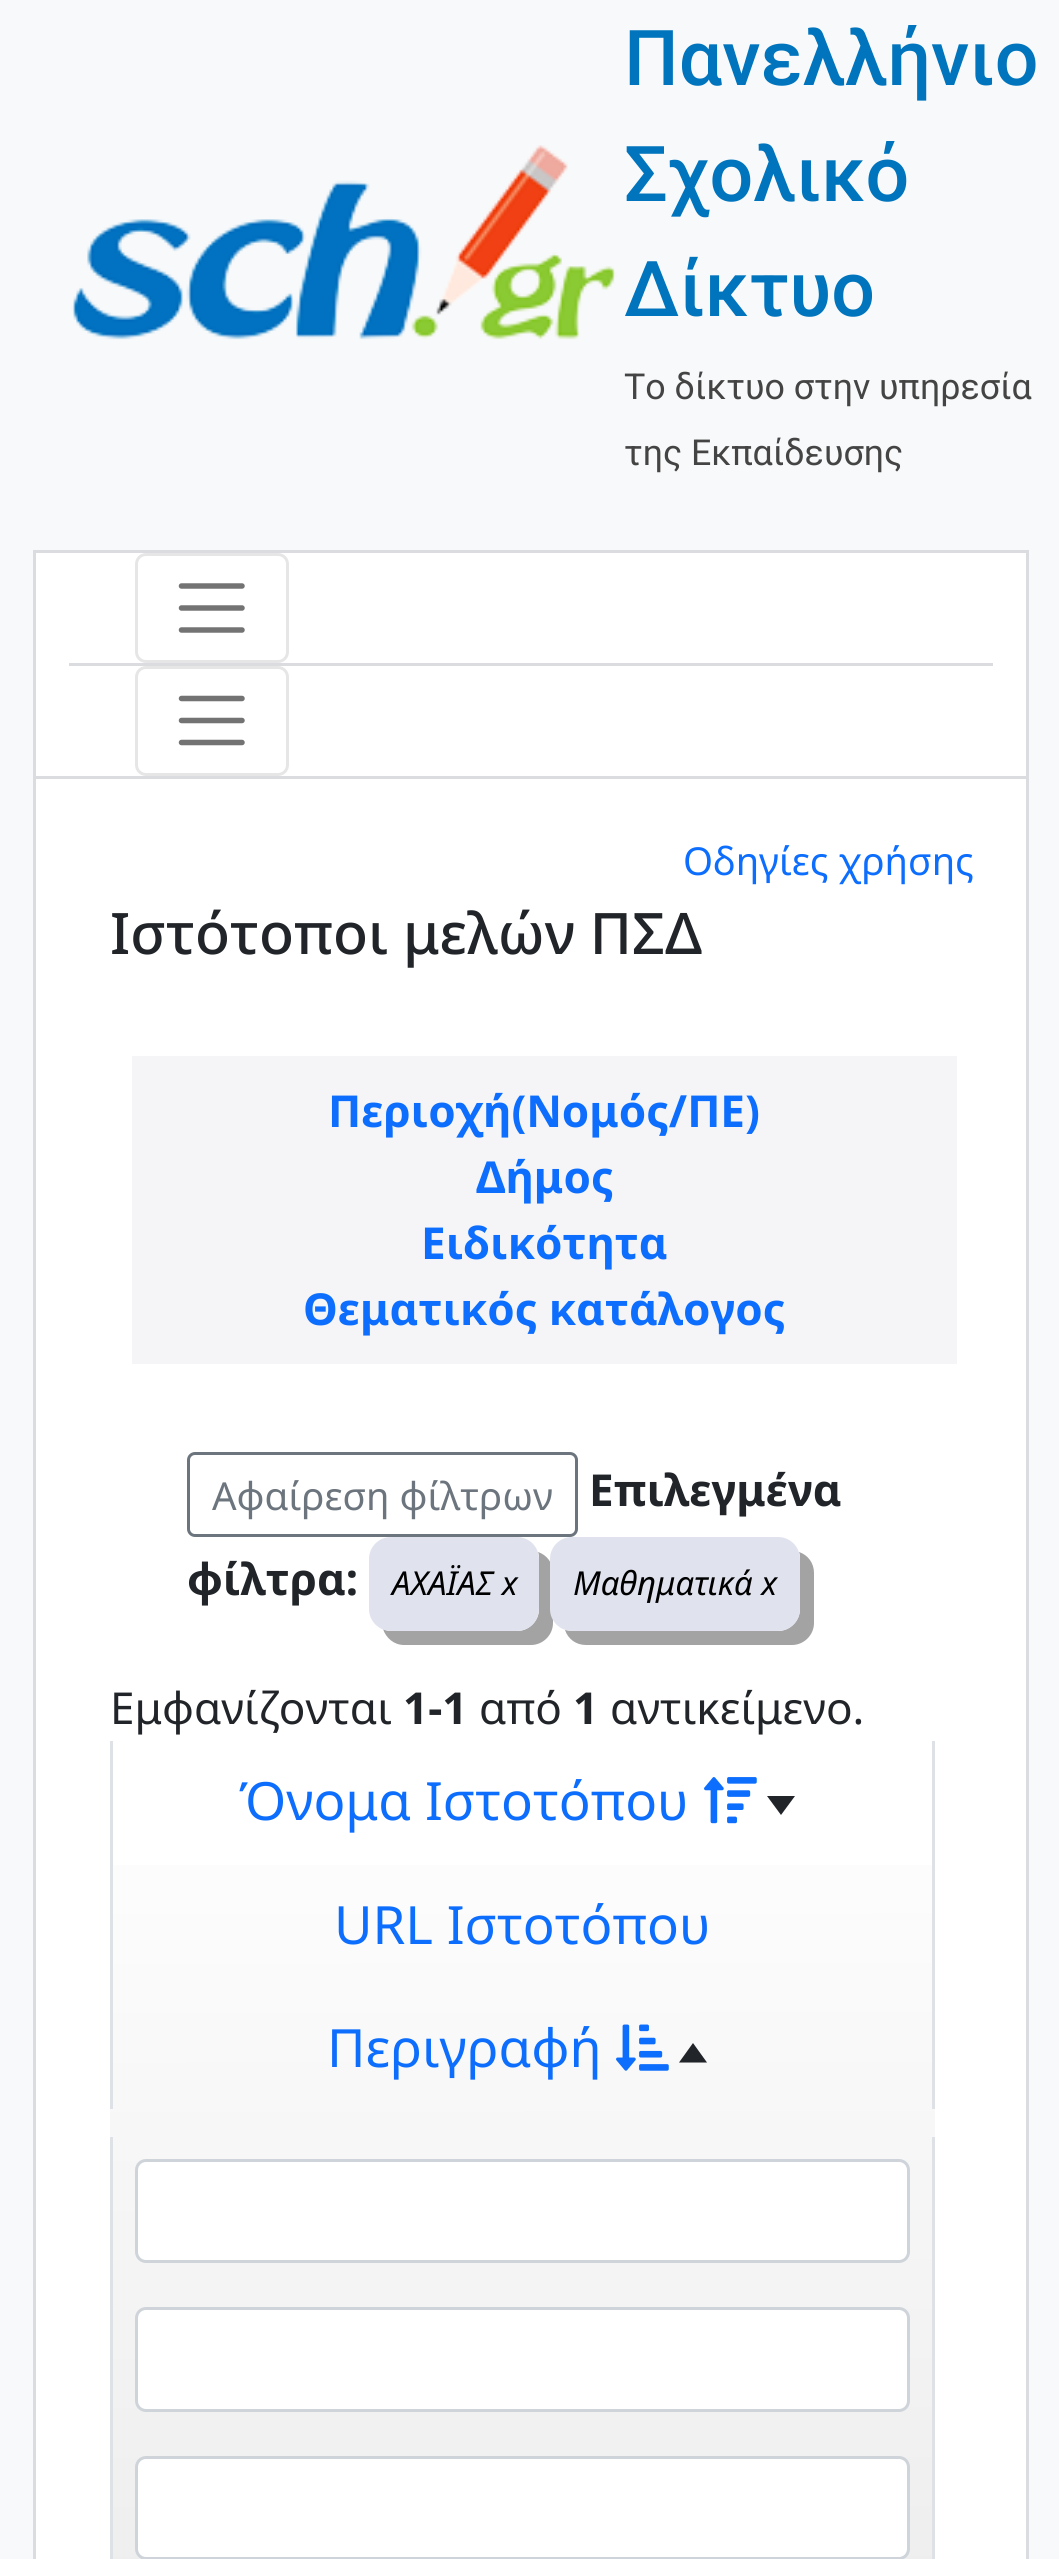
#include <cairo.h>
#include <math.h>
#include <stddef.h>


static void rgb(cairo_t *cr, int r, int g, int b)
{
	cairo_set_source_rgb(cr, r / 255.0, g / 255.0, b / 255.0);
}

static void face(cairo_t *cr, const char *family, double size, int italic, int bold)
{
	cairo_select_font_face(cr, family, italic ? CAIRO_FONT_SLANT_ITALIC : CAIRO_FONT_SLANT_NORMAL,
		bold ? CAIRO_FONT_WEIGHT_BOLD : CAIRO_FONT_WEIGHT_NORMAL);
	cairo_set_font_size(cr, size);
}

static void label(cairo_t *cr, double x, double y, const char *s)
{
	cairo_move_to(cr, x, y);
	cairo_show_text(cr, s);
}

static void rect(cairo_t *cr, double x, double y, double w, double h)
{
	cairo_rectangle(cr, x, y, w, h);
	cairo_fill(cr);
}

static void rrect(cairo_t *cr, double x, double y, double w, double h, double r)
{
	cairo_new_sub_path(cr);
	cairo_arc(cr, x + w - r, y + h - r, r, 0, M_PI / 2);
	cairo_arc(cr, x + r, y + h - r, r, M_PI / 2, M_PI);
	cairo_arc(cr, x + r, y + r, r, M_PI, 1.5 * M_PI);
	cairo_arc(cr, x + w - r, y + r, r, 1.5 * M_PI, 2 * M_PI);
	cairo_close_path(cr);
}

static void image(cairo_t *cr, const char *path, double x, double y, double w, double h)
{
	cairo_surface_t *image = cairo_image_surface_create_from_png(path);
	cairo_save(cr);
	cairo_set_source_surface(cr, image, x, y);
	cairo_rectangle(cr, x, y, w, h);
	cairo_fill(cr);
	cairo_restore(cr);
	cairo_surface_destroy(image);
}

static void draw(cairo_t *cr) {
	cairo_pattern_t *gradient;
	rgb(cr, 248, 249, 250);
	cairo_paint(cr);
	image(cr, "image0.png", 71, 145, 546, 195);
	face(cr, "Roboto Medium", 77, 0, 0);
	rgb(cr, 0, 116, 188);
	label(cr, 624, 85, "Πανελλήνιο");
	label(cr, 624, 201, "Σχολικό");
	label(cr, 624, 316, "Δίκτυο");
	face(cr, "Roboto", 35.75, 0, 0);
	rgb(cr, 68, 68, 68);
	label(cr, 624, 399, "Το δίκτυο στην υπηρεσία");
	label(cr, 624, 465, "της Εκπαίδευσης");
	rgb(cr, 255, 255, 255);
	rect(cr, 36, 553, 990, 223);
	rgb(cr, 218, 220, 224);
	rect(cr, 33, 550, 996, 3);
	rect(cr, 1026, 550, 3, 226);
	rect(cr, 33, 550, 3, 226);
	rect(cr, 69, 663, 924, 3);
	rrect(cr, 136.5, 554.5, 151, 107, 9.5);
	rgb(cr, 230, 230, 230);
	cairo_set_line_width(cr, 3);
	cairo_stroke(cr);
	cairo_new_path(cr);
	cairo_move_to(cr, 181.5, 586);
	cairo_line_to(cr, 242, 586);
	cairo_move_to(cr, 181.5, 608);
	cairo_line_to(cr, 242, 608);
	cairo_move_to(cr, 181.5, 630);
	cairo_line_to(cr, 242, 630);
	rgb(cr, 115, 115, 115);
	cairo_set_line_width(cr, 5.5);
	cairo_set_line_cap(cr, CAIRO_LINE_CAP_ROUND);
	cairo_stroke(cr);
	rrect(cr, 136.5, 667.5, 151, 107, 9.5);
	rgb(cr, 230, 230, 230);
	cairo_set_line_width(cr, 3);
	cairo_set_line_cap(cr, CAIRO_LINE_CAP_BUTT);
	cairo_stroke(cr);
	cairo_new_path(cr);
	cairo_move_to(cr, 181.5, 698.5);
	cairo_line_to(cr, 242, 698.5);
	cairo_move_to(cr, 181.5, 720.5);
	cairo_line_to(cr, 242, 720.5);
	cairo_move_to(cr, 181.5, 742.5);
	cairo_line_to(cr, 242, 742.5);
	rgb(cr, 115, 115, 115);
	cairo_set_line_width(cr, 5.5);
	cairo_set_line_cap(cr, CAIRO_LINE_CAP_ROUND);
	cairo_stroke(cr);
	rgb(cr, 255, 255, 255);
	cairo_rectangle(cr, 34.5, 777.5, 993, 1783);
	cairo_fill_preserve(cr);
	rgb(cr, 218, 220, 224);
	cairo_set_line_width(cr, 3);
	cairo_set_line_cap(cr, CAIRO_LINE_CAP_BUTT);
	cairo_stroke(cr);
	face(cr, "Noto Sans", 38.5, 0, 0);
	rgb(cr, 13, 110, 253);
	label(cr, 683, 875, "Οδηγίες χρήσης");
	face(cr, "Noto Sans Medium", 57.25, 0, 0);
	rgb(cr, 33, 37, 41);
	label(cr, 110, 954, "Ιστότοποι μελών ΠΣΔ");
	rgb(cr, 245, 245, 248);
	rect(cr, 132, 1056, 825, 308);
	face(cr, "Noto Sans", 44, 0, 1);
	rgb(cr, 13, 110, 253);
	label(cr, 328, 1127, "Περιοχή(Νομός/ΠΕ)");
	label(cr, 476, 1193, "Δήμος");
	label(cr, 421, 1259, "Ειδικότητα");
	label(cr, 303, 1325, "Θεματικός κατάλογος");
	rgb(cr, 33, 37, 41);
	label(cr, 589, 1506, "Επιλεγμένα");
	label(cr, 187, 1595, "φίλτρα:");
	rgb(cr, 163, 163, 163);
	cairo_new_path(cr);
	cairo_move_to(cr, 383, 1629);
	cairo_curve_to(cr, 386, 1638, 394, 1645, 404, 1645);
	cairo_line_to(cr, 531, 1645);
	cairo_curve_to(cr, 543, 1645, 553, 1635, 553, 1623);
	cairo_line_to(cr, 553, 1573);
	cairo_curve_to(cr, 553, 1563, 547, 1555, 538, 1552);
	cairo_curve_to(cr, 539, 1554, 539, 1557, 539, 1559);
	cairo_line_to(cr, 539, 1609);
	cairo_curve_to(cr, 539, 1621, 529, 1631, 517, 1631);
	cairo_line_to(cr, 390, 1631);
	cairo_curve_to(cr, 388, 1631, 385, 1630, 383, 1629);
	cairo_close_path(cr);
	cairo_fill(cr);
	rgb(cr, 224, 226, 238);
	rrect(cr, 369, 1537, 170, 94, 22);
	cairo_fill(cr);
	face(cr, "Noto Sans", 33, 1, 0);
	rgb(cr, 0, 0, 0);
	label(cr, 392, 1595, "ΑΧΑΪΑΣ x");
	rgb(cr, 163, 163, 163);
	cairo_new_path(cr);
	cairo_move_to(cr, 565, 1630);
	cairo_curve_to(cr, 568, 1639, 576, 1645, 586, 1645);
	cairo_line_to(cr, 792, 1645);
	cairo_curve_to(cr, 804, 1645, 814, 1635, 814, 1623);
	cairo_line_to(cr, 814, 1573);
	cairo_curve_to(cr, 814, 1563, 808, 1555, 799, 1552);
	cairo_curve_to(cr, 800, 1554, 800, 1557, 800, 1559);
	cairo_line_to(cr, 800, 1609);
	cairo_curve_to(cr, 800, 1621, 790, 1631, 778, 1631);
	cairo_line_to(cr, 572, 1631);
	cairo_curve_to(cr, 570, 1631, 567, 1630, 565, 1630);
	cairo_close_path(cr);
	cairo_fill(cr);
	rgb(cr, 224, 226, 238);
	rrect(cr, 550, 1537, 250, 94, 22);
	cairo_fill(cr);
	rgb(cr, 0, 0, 0);
	label(cr, 573, 1595, "Μαθηματικά x");
	rrect(cr, 188.5, 1453.5, 388, 82, 6.5);
	rgb(cr, 108, 117, 125);
	cairo_stroke(cr);
	face(cr, "Noto Sans", 38.5, 0, 0);
	label(cr, 212, 1510, "Αφαίρεση φίλτρων");
	face(cr, "Noto Sans", 44, 0, 0);
	rgb(cr, 33, 37, 41);
	label(cr, 110, 1724, "Εμφανίζονται");
	face(cr, "Noto Sans", 44, 0, 1);
	label(cr, 403, 1724, "1-1");
	face(cr, "Noto Sans", 44, 0, 0);
	label(cr, 479, 1724, "από");
	face(cr, "Noto Sans", 44, 0, 1);
	label(cr, 573, 1724, "1");
	face(cr, "Noto Sans", 44, 0, 0);
	label(cr, 610, 1724, "αντικείμενο.");
	gradient = cairo_pattern_create_linear(522, 1741, 523, 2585);
	cairo_pattern_add_color_stop_rgba(gradient, 0, 1, 1, 1, 1);
	cairo_pattern_add_color_stop_rgba(gradient, 1, 0.933, 0.933, 0.933, 1);
	cairo_set_source(cr, gradient);
	cairo_pattern_destroy(gradient);
	rect(cr, 110, 1865, 825, 694);
	rgb(cr, 222, 226, 230);
	rect(cr, 932, 1741, 3, 368);
	rect(cr, 110, 1741, 3, 368);
	face(cr, "Noto Sans", 52.75, 0, 0);
	rgb(cr, 13, 110, 253);
	label(cr, 239, 1820, "Όνομα Ιστοτόπου");
	image(cr, "image1.png", 704, 1777, 53, 47);
	rgb(cr, 33, 37, 41);
	cairo_new_path(cr);
	cairo_move_to(cr, 767, 1796);
	cairo_line_to(cr, 795, 1796);
	cairo_line_to(cr, 781, 1815);
	cairo_close_path(cr);
	cairo_fill(cr);
	rgb(cr, 13, 110, 253);
	label(cr, 334, 1944, "URL Ιστοτόπου");
	label(cr, 327, 2067, "Περιγραφή");
	image(cr, "image2.png", 616, 2024, 53, 47);
	rgb(cr, 33, 37, 41);
	cairo_new_path(cr);
	cairo_move_to(cr, 707, 2062.5);
	cairo_line_to(cr, 679, 2062.5);
	cairo_line_to(cr, 693, 2043);
	cairo_close_path(cr);
	cairo_fill(cr);
	rgb(cr, 222, 226, 230);
	rect(cr, 932, 2137, 3, 422);
	rect(cr, 110, 2137, 3, 422);
	rgb(cr, 255, 255, 255);
	rrect(cr, 136.5, 2160.5, 772, 101, 9.5);
	cairo_fill_preserve(cr);
	rgb(cr, 206, 212, 218);
	cairo_stroke(cr);
	rgb(cr, 255, 255, 255);
	rrect(cr, 136.5, 2308.5, 772, 102, 9.5);
	cairo_fill_preserve(cr);
	rgb(cr, 206, 212, 218);
	cairo_stroke(cr);
	rgb(cr, 255, 255, 255);
	rrect(cr, 136.5, 2457.5, 772, 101, 9.5);
	cairo_fill_preserve(cr);
	rgb(cr, 206, 212, 218);
	cairo_stroke(cr);
}

int main(void) {
	cairo_surface_t *surface = cairo_image_surface_create(CAIRO_FORMAT_RGB24, 1059, 2559);
	cairo_t *cr = cairo_create(surface);
	cairo_font_options_t *options = cairo_font_options_create();
	cairo_font_options_set_hint_metrics(options, CAIRO_HINT_METRICS_OFF);
	cairo_font_options_set_hint_style(options, CAIRO_HINT_STYLE_NONE);
	cairo_set_font_options(cr, options);
	cairo_set_miter_limit(cr, 4);
	draw(cr);
	cairo_surface_write_to_png(surface, "render.png");
	cairo_font_options_destroy(options);
	cairo_destroy(cr);
	cairo_surface_destroy(surface);
	return 0;
}
